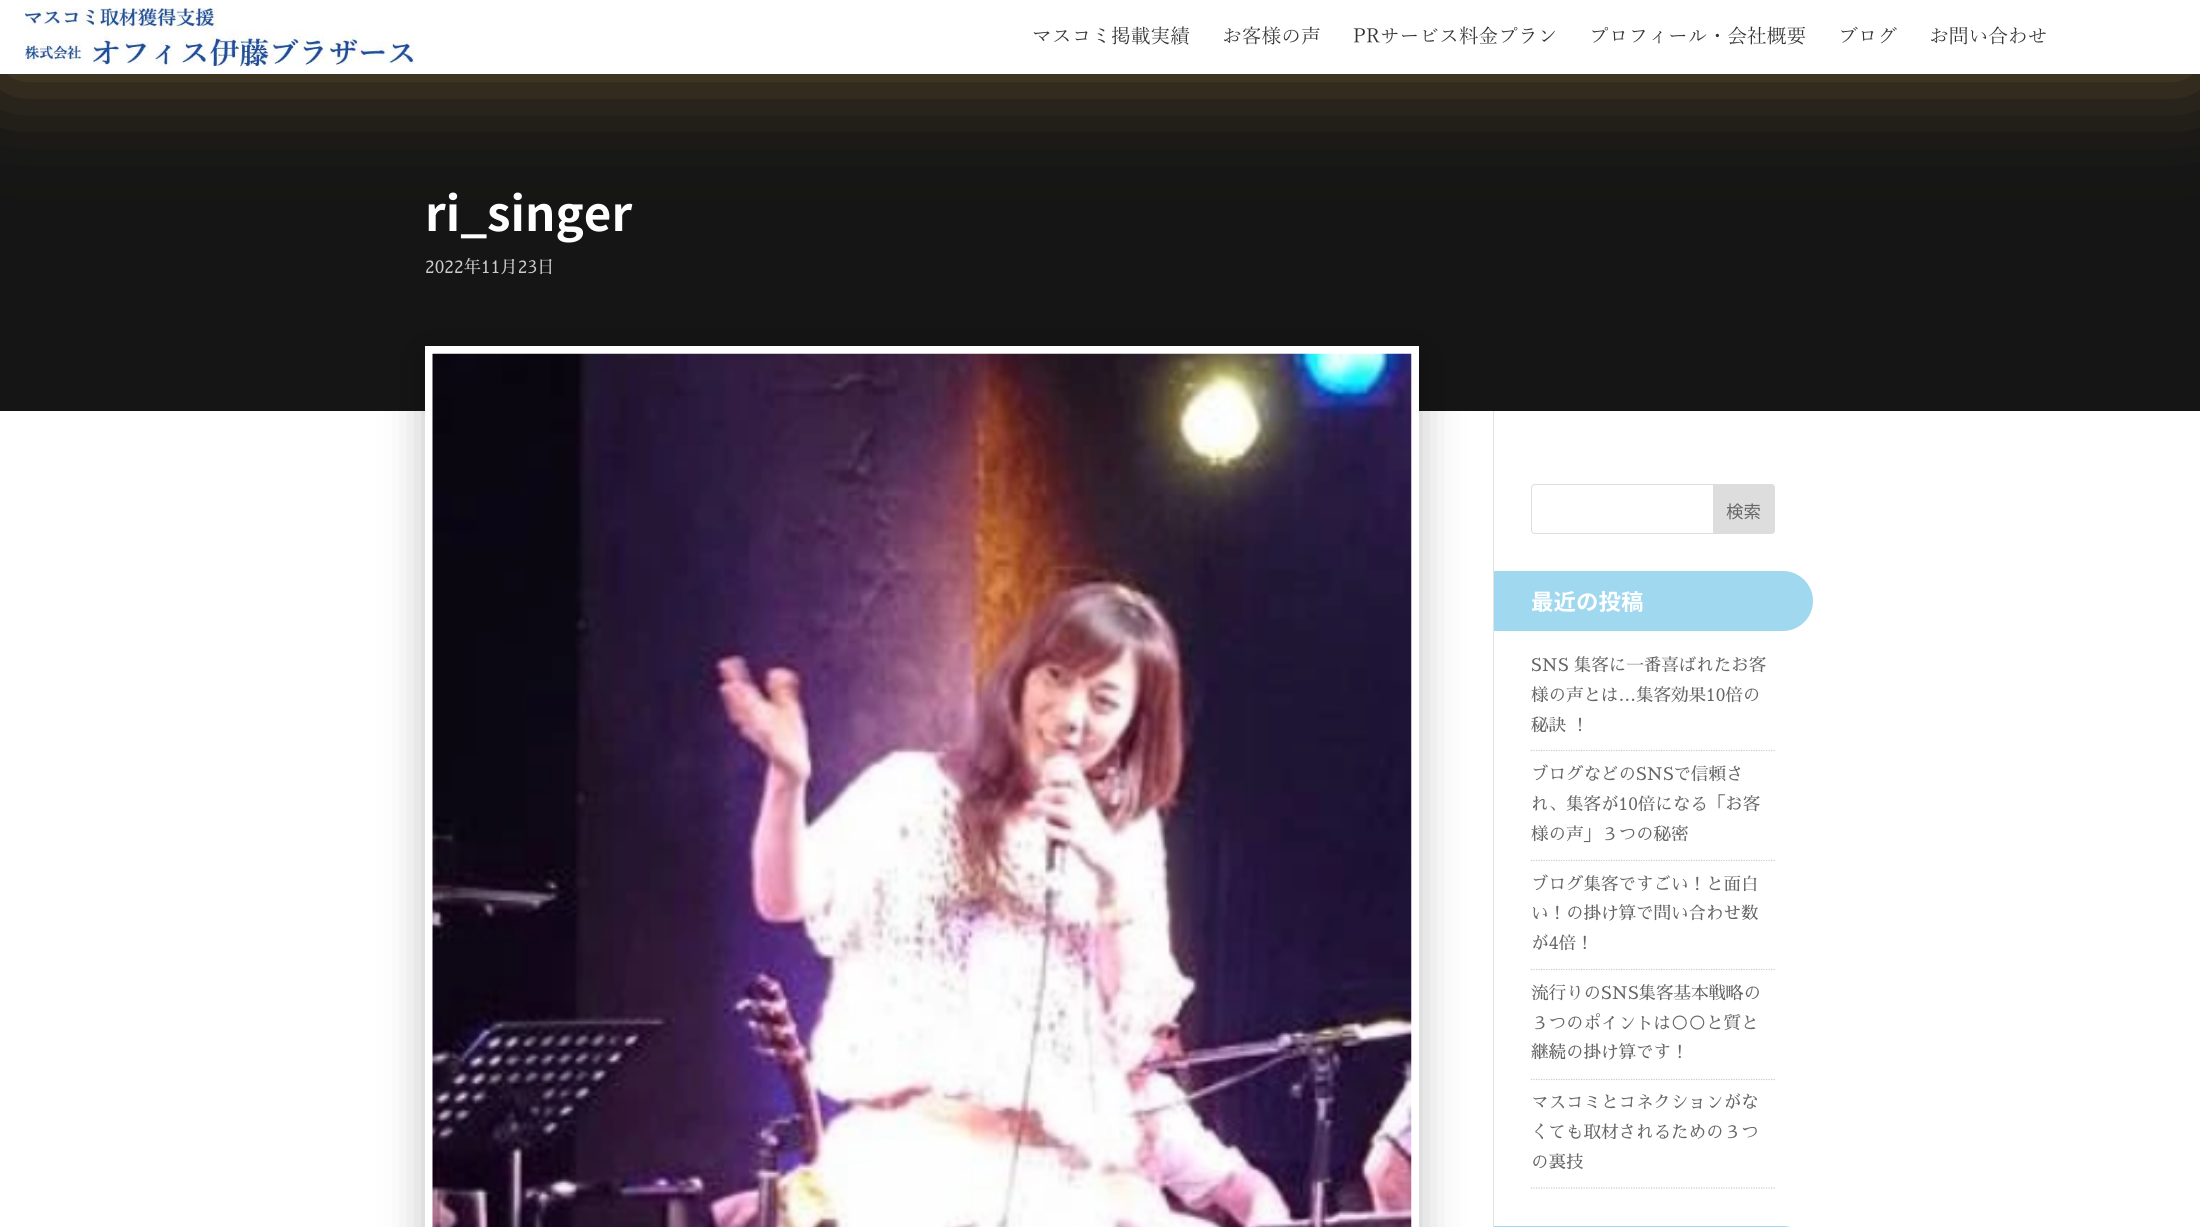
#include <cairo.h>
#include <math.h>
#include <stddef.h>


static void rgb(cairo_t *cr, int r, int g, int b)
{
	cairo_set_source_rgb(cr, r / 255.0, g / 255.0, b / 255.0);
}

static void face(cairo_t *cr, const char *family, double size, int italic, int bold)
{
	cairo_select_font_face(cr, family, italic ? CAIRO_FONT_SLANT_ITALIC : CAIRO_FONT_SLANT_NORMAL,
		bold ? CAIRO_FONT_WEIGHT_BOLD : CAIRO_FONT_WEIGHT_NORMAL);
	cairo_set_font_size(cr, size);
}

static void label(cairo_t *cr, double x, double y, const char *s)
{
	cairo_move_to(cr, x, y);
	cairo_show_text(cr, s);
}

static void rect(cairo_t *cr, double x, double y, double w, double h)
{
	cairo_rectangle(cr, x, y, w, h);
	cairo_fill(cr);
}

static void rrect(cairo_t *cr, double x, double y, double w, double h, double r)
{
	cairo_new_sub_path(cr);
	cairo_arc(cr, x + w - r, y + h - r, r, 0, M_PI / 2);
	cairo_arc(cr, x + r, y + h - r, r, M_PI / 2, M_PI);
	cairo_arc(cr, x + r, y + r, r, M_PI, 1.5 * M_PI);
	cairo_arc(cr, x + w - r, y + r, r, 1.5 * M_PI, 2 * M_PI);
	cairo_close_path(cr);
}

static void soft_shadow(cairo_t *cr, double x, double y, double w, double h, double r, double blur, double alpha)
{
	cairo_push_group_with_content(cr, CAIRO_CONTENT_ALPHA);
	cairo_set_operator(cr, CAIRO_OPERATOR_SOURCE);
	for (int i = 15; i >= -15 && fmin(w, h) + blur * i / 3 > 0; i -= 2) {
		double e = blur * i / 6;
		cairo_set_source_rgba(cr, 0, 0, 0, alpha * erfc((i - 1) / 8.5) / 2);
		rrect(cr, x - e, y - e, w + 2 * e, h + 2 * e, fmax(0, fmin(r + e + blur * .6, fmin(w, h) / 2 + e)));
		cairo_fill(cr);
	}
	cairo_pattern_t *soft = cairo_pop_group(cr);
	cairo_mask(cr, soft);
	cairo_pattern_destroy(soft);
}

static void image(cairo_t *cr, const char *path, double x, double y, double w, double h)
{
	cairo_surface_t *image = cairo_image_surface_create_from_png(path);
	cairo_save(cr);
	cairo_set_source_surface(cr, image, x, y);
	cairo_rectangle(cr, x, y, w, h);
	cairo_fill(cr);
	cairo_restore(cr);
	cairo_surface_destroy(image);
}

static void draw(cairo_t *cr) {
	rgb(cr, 255, 255, 255);
	cairo_paint(cr);
	rgb(cr, 21, 21, 21);
	rect(cr, 0, 74, 2200, 337);
	rgb(cr, 218, 173, 85);
	soft_shadow(cr, 0, 0, 2200, 74, 0, 50, 0.4);
	rgb(cr, 255, 255, 255);
	rect(cr, 0, 0, 2200, 74);
	image(cr, "image0.png", 25, 7, 390, 60);
	face(cr, "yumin", 19.75, 0, 0);
	rgb(cr, 51, 51, 51);
	label(cr, 1032, 43, "マスコミ掲載実績");
	label(cr, 1222, 43, "お客様の声");
	label(cr, 1353, 43, "PRサービス料金プラン");
	label(cr, 1589, 43, "プロフィール・会社概要");
	label(cr, 1838, 43, "ブログ");
	label(cr, 1929, 43, "お問い合わせ");
	face(cr, "Noto Sans JP", 47.5, 0, 1);
	rgb(cr, 255, 255, 255);
	label(cr, 425, 231, "ri_singer");
	face(cr, "Sawarabi Mincho", 17.5, 0, 0);
	rgb(cr, 204, 204, 204);
	label(cr, 425, 273, "2022年11月23日");
	rgb(cr, 226, 226, 226);
	rect(cr, 1493, 411, 1, 816);
	rgb(cr, 0, 0, 0);
	soft_shadow(cr, 425, 354, 994, 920, 0, 22, 0.25);
	cairo_rectangle(cr, 429, 350, 986, 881);
	rgb(cr, 255, 255, 255);
	cairo_set_line_width(cr, 8);
	cairo_stroke(cr);
	image(cr, "image1.png", 432, 353, 980, 874);
	rrect(cr, 1531.5, 484.5, 243, 49, 3.5);
	rgb(cr, 221, 221, 221);
	cairo_set_line_width(cr, 1);
	cairo_stroke(cr);
	cairo_new_path(cr);
	cairo_move_to(cr, 1713.5, 484.5);
	cairo_line_to(cr, 1771, 484.5);
	cairo_curve_to(cr, 1773, 484.5, 1774.5, 486, 1774.5, 488);
	cairo_line_to(cr, 1774.5, 530);
	cairo_curve_to(cr, 1774.5, 532, 1773, 533.5, 1771, 533.5);
	cairo_line_to(cr, 1713.5, 533.5);
	cairo_close_path(cr);
	cairo_fill_preserve(cr);
	cairo_stroke(cr);
	face(cr, "Noto Sans JP", 17.5, 0, 0);
	rgb(cr, 102, 102, 102);
	label(cr, 1726, 518, "検索");
	rgb(cr, 160, 216, 239);
	cairo_new_path(cr);
	cairo_move_to(cr, 1494, 571);
	cairo_line_to(cr, 1783, 571);
	cairo_curve_to(cr, 1799.5, 571, 1813, 584.5, 1813, 601);
	cairo_curve_to(cr, 1813, 617.5, 1799.5, 631, 1783, 631);
	cairo_line_to(cr, 1494, 631);
	cairo_close_path(cr);
	cairo_fill(cr);
	face(cr, "Noto Sans JP", 22.5, 0, 1);
	rgb(cr, 255, 255, 255);
	label(cr, 1531, 610, "最近の投稿");
	cairo_new_path(cr);
	cairo_move_to(cr, 1531, 750.5);
	cairo_line_to(cr, 1775, 750.5);
	rgb(cr, 204, 204, 204);
	cairo_set_line_width(cr, 1.2);
	cairo_set_dash(cr, (double[]){1.25, 1.25}, 2, 0);
	cairo_stroke(cr);
	face(cr, "Sawarabi Mincho", 17.5, 0, 0);
	rgb(cr, 102, 102, 102);
	label(cr, 1531, 671, "SNS 集客に一番喜ばれたお客");
	label(cr, 1531, 701, "様の声とは…集客効果10倍の");
	label(cr, 1531, 731, "秘訣 ！");
	cairo_new_path(cr);
	cairo_move_to(cr, 1531, 860.5);
	cairo_line_to(cr, 1775, 860.5);
	rgb(cr, 204, 204, 204);
	cairo_stroke(cr);
	rgb(cr, 102, 102, 102);
	label(cr, 1531, 780, "ブログなどのSNSで信頼さ");
	label(cr, 1531, 810, "れ、集客が10倍になる「お客");
	label(cr, 1531, 840, "様の声」３つの秘密");
	cairo_new_path(cr);
	cairo_move_to(cr, 1531, 969.5);
	cairo_line_to(cr, 1775, 969.5);
	rgb(cr, 204, 204, 204);
	cairo_stroke(cr);
	rgb(cr, 102, 102, 102);
	label(cr, 1531, 890, "ブログ集客ですごい！と面白");
	label(cr, 1531, 919, "い！の掛け算で問い合わせ数");
	label(cr, 1531, 949, "が4倍！");
	cairo_new_path(cr);
	cairo_move_to(cr, 1531, 1079.5);
	cairo_line_to(cr, 1775, 1079.5);
	rgb(cr, 204, 204, 204);
	cairo_stroke(cr);
	rgb(cr, 102, 102, 102);
	label(cr, 1531, 999, "流行りのSNS集客基本戦略の");
	label(cr, 1531, 1029, "３つのポイントは○○と質と");
	label(cr, 1531, 1058, "継続の掛け算です！");
	cairo_new_path(cr);
	cairo_move_to(cr, 1531, 1188);
	cairo_line_to(cr, 1775, 1188);
	rgb(cr, 204, 204, 204);
	cairo_stroke(cr);
	rgb(cr, 102, 102, 102);
	label(cr, 1531, 1108, "マスコミとコネクションがな");
	label(cr, 1531, 1138, "くても取材されるための３つ");
	label(cr, 1531, 1168, "の裏技");
	rgb(cr, 160, 216, 239);
	cairo_new_path(cr);
	cairo_move_to(cr, 1494, 1226);
	cairo_line_to(cr, 1783, 1226);
	cairo_curve_to(cr, 1799.5, 1226, 1813, 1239.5, 1813, 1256);
	cairo_line_to(cr, 1813, 1227);
	cairo_curve_to(cr, 1813, 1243.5, 1799.5, 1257, 1783, 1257);
	cairo_line_to(cr, 1494, 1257);
	cairo_close_path(cr);
	cairo_fill(cr);
}

int main(void) {
	cairo_surface_t *surface = cairo_image_surface_create(CAIRO_FORMAT_RGB24, 2200, 1227);
	cairo_t *cr = cairo_create(surface);
	cairo_font_options_t *options = cairo_font_options_create();
	cairo_font_options_set_hint_metrics(options, CAIRO_HINT_METRICS_OFF);
	cairo_font_options_set_hint_style(options, CAIRO_HINT_STYLE_NONE);
	cairo_set_font_options(cr, options);
	cairo_set_miter_limit(cr, 4);
	draw(cr);
	cairo_surface_write_to_png(surface, "render.png");
	cairo_font_options_destroy(options);
	cairo_destroy(cr);
	cairo_surface_destroy(surface);
	return 0;
}
